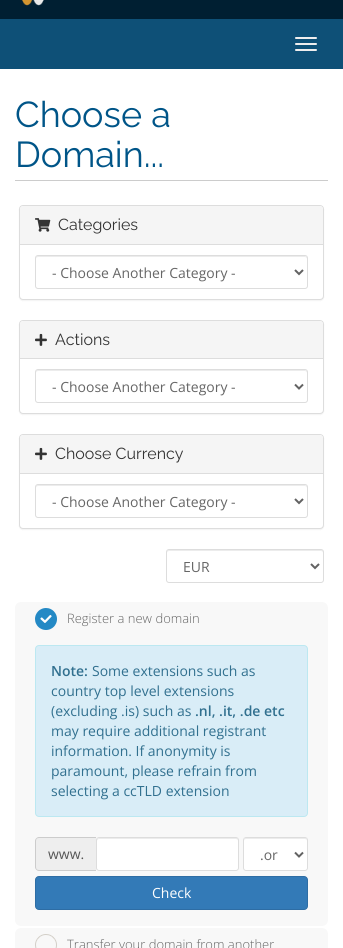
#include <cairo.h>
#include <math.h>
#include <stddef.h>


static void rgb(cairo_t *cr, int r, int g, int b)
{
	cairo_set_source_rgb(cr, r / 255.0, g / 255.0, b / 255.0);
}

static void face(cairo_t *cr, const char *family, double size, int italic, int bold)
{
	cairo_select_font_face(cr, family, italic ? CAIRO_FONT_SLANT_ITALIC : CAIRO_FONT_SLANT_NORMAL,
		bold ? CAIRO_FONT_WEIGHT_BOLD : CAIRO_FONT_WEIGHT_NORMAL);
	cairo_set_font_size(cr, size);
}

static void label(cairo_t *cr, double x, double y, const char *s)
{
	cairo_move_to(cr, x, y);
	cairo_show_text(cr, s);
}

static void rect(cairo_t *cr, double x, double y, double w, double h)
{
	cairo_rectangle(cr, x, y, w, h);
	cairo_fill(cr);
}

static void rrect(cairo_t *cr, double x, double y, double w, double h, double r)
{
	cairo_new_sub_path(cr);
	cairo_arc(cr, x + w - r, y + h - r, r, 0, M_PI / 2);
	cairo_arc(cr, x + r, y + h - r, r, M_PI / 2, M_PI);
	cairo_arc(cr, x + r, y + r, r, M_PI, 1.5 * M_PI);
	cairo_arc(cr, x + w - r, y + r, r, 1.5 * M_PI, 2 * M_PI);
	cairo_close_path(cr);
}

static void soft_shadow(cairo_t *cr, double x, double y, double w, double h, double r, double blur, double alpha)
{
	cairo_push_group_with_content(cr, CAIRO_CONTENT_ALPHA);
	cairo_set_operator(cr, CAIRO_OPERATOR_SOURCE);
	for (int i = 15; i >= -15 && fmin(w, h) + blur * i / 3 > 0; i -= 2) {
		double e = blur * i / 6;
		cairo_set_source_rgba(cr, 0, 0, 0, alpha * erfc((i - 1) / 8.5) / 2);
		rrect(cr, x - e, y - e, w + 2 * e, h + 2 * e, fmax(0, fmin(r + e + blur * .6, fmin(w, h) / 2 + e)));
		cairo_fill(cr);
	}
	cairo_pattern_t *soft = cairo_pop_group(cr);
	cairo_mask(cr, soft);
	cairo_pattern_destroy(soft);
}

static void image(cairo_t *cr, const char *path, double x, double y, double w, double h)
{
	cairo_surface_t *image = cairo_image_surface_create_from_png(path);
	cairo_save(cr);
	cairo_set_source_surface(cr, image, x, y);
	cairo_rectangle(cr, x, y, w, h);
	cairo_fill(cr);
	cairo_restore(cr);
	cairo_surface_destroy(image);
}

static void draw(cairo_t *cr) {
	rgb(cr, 0, 31, 50);
	cairo_paint(cr);
	image(cr, "image0.png", 21, 0, 23, 6);
	rgb(cr, 14, 80, 119);
	rect(cr, 0, 19, 343, 50);
	rgb(cr, 238, 238, 238);
	rrect(cr, 295, 37, 22, 2, 1);
	cairo_fill(cr);
	rrect(cr, 295, 43, 22, 2, 1);
	cairo_fill(cr);
	rrect(cr, 295, 49, 22, 2, 1);
	cairo_fill(cr);
	rgb(cr, 255, 255, 255);
	rect(cr, 0, 69, 343, 879);
	rgb(cr, 204, 204, 204);
	rect(cr, 15, 180, 313, 1);
	face(cr, "Raleway", 36, 0, 0);
	rgb(cr, 0, 85, 136);
	label(cr, 15, 127, "Choose a");
	label(cr, 15, 167, "Domain...");
	rgb(cr, 0, 0, 0);
	soft_shadow(cr, 19, 206, 305, 95, 4, 0.5, 0.05);
	rgb(cr, 255, 255, 255);
	rrect(cr, 19.5, 205.5, 304, 94, 3.5);
	cairo_fill_preserve(cr);
	rgb(cr, 221, 221, 221);
	cairo_set_line_width(cr, 1);
	cairo_stroke(cr);
	rgb(cr, 245, 245, 245);
	cairo_new_path(cr);
	cairo_move_to(cr, 23, 206);
	cairo_line_to(cr, 320, 206);
	cairo_curve_to(cr, 321.5, 206, 323, 207.5, 323, 209);
	cairo_line_to(cr, 323, 245);
	cairo_line_to(cr, 20, 245);
	cairo_line_to(cr, 20, 209);
	cairo_curve_to(cr, 20, 207.5, 21.5, 206, 23, 206);
	cairo_close_path(cr);
	cairo_fill(cr);
	rgb(cr, 221, 221, 221);
	rect(cr, 20, 244, 303, 1);
	image(cr, "image1.png", 35, 218, 16, 14);
	face(cr, "Raleway", 16, 0, 0);
	rgb(cr, 51, 51, 51);
	label(cr, 58, 230, "Categories");
	rgb(cr, 236, 236, 236);
	cairo_new_path(cr);
	cairo_move_to(cr, 38, 257);
	cairo_line_to(cr, 305, 257);
	cairo_curve_to(cr, 306, 257, 307, 258, 307, 259);
	cairo_line_to(cr, 307, 257);
	cairo_line_to(cr, 305, 256);
	cairo_line_to(cr, 38, 256);
	cairo_curve_to(cr, 36, 256, 36, 258, 36, 259);
	cairo_curve_to(cr, 36, 258, 37, 257, 38, 257);
	cairo_close_path(cr);
	cairo_fill(cr);
	rrect(cr, 35.5, 255.5, 272, 33, 2.5);
	rgb(cr, 221, 221, 221);
	cairo_stroke(cr);
	cairo_new_path(cr);
	cairo_move_to(cr, 295, 270);
	cairo_line_to(cr, 299, 274);
	cairo_line_to(cr, 303, 270);
	rgb(cr, 98, 98, 98);
	cairo_set_line_width(cr, 2);
	cairo_stroke(cr);
	face(cr, "Open Sans", 14, 0, 0);
	rgb(cr, 102, 102, 102);
	label(cr, 52, 278, "- Choose Another Category -");
	rgb(cr, 0, 0, 0);
	soft_shadow(cr, 19, 321, 305, 94, 4, 0.5, 0.05);
	rgb(cr, 255, 255, 255);
	rrect(cr, 19.5, 320.5, 304, 93, 3.5);
	cairo_fill_preserve(cr);
	rgb(cr, 221, 221, 221);
	cairo_set_line_width(cr, 1);
	cairo_stroke(cr);
	rgb(cr, 245, 245, 245);
	cairo_new_path(cr);
	cairo_move_to(cr, 23, 321);
	cairo_line_to(cr, 320, 321);
	cairo_curve_to(cr, 321.5, 321, 323, 322.5, 323, 324);
	cairo_line_to(cr, 323, 359);
	cairo_line_to(cr, 20, 359);
	cairo_line_to(cr, 20, 324);
	cairo_curve_to(cr, 20, 322.5, 21.5, 321, 23, 321);
	cairo_close_path(cr);
	cairo_fill(cr);
	rgb(cr, 221, 221, 221);
	rect(cr, 20, 358, 303, 1);
	image(cr, "image2.png", 35, 333, 12, 13);
	face(cr, "Raleway", 16, 0, 0);
	rgb(cr, 51, 51, 51);
	label(cr, 55, 345, "Actions");
	rgb(cr, 236, 236, 236);
	cairo_new_path(cr);
	cairo_move_to(cr, 38, 371);
	cairo_line_to(cr, 305, 371);
	cairo_curve_to(cr, 306, 371, 307, 372, 307, 373);
	cairo_line_to(cr, 307, 371);
	cairo_line_to(cr, 305, 370);
	cairo_line_to(cr, 38, 370);
	cairo_curve_to(cr, 36, 370, 36, 372, 36, 373);
	cairo_curve_to(cr, 36, 372, 37, 371, 38, 371);
	cairo_close_path(cr);
	cairo_fill(cr);
	rrect(cr, 35.5, 369.5, 272, 33, 2.5);
	rgb(cr, 221, 221, 221);
	cairo_stroke(cr);
	cairo_new_path(cr);
	cairo_move_to(cr, 295, 384.5);
	cairo_line_to(cr, 299, 388.5);
	cairo_line_to(cr, 303, 384.5);
	rgb(cr, 98, 98, 98);
	cairo_set_line_width(cr, 2);
	cairo_stroke(cr);
	face(cr, "Open Sans", 14, 0, 0);
	rgb(cr, 102, 102, 102);
	label(cr, 52, 392, "- Choose Another Category -");
	rgb(cr, 0, 0, 0);
	soft_shadow(cr, 19, 435, 305, 95, 4, 0.5, 0.05);
	rgb(cr, 255, 255, 255);
	rrect(cr, 19.5, 434.5, 304, 94, 3.5);
	cairo_fill_preserve(cr);
	rgb(cr, 221, 221, 221);
	cairo_set_line_width(cr, 1);
	cairo_stroke(cr);
	rgb(cr, 245, 245, 245);
	cairo_new_path(cr);
	cairo_move_to(cr, 23, 435);
	cairo_line_to(cr, 320, 435);
	cairo_curve_to(cr, 321.5, 435, 323, 436.5, 323, 438);
	cairo_line_to(cr, 323, 474);
	cairo_line_to(cr, 20, 474);
	cairo_line_to(cr, 20, 438);
	cairo_curve_to(cr, 20, 436.5, 21.5, 435, 23, 435);
	cairo_close_path(cr);
	cairo_fill(cr);
	rgb(cr, 221, 221, 221);
	rect(cr, 20, 473, 303, 1);
	image(cr, "image2.png", 35, 447, 12, 13);
	face(cr, "Raleway", 16, 0, 0);
	rgb(cr, 51, 51, 51);
	label(cr, 55, 459, "Choose Currency");
	rgb(cr, 236, 236, 236);
	cairo_new_path(cr);
	cairo_move_to(cr, 38, 486);
	cairo_line_to(cr, 305, 486);
	cairo_curve_to(cr, 306, 486, 307, 487, 307, 488);
	cairo_line_to(cr, 307, 486);
	cairo_line_to(cr, 305, 485);
	cairo_line_to(cr, 38, 485);
	cairo_curve_to(cr, 36, 485, 36, 487, 36, 488);
	cairo_curve_to(cr, 36, 487, 37, 486, 38, 486);
	cairo_close_path(cr);
	cairo_fill(cr);
	rrect(cr, 35.5, 484.5, 272, 33, 2.5);
	rgb(cr, 221, 221, 221);
	cairo_stroke(cr);
	cairo_new_path(cr);
	cairo_move_to(cr, 295, 499);
	cairo_line_to(cr, 299, 503);
	cairo_line_to(cr, 303, 499);
	rgb(cr, 98, 98, 98);
	cairo_set_line_width(cr, 2);
	cairo_stroke(cr);
	face(cr, "Open Sans", 14, 0, 0);
	rgb(cr, 102, 102, 102);
	label(cr, 52, 507, "- Choose Another Category -");
	rgb(cr, 236, 236, 236);
	cairo_new_path(cr);
	cairo_move_to(cr, 169, 551);
	cairo_line_to(cr, 321, 551);
	cairo_curve_to(cr, 322, 551, 323, 552, 323, 553);
	cairo_curve_to(cr, 323, 552, 323, 550, 321, 550);
	cairo_line_to(cr, 169, 550);
	cairo_curve_to(cr, 167, 550, 167, 552, 167, 553);
	cairo_curve_to(cr, 167, 552, 168, 551, 169, 551);
	cairo_close_path(cr);
	cairo_fill(cr);
	rrect(cr, 166.5, 549.5, 157, 33, 2.5);
	rgb(cr, 221, 221, 221);
	cairo_set_line_width(cr, 1);
	cairo_stroke(cr);
	cairo_new_path(cr);
	cairo_move_to(cr, 311, 564);
	cairo_line_to(cr, 315, 568);
	cairo_line_to(cr, 319, 564);
	rgb(cr, 98, 98, 98);
	cairo_set_line_width(cr, 2);
	cairo_stroke(cr);
	rgb(cr, 102, 102, 102);
	label(cr, 183, 572, "EUR");
	rgb(cr, 248, 248, 248);
	rrect(cr, 15, 602, 313, 324, 6);
	cairo_fill(cr);
	image(cr, "image3.png", 35, 608, 22, 22);
	face(cr, "Open Sans Light", 13, 0, 0);
	rgb(cr, 102, 102, 102);
	label(cr, 67, 623, "Register a new domain");
	rgb(cr, 217, 237, 247);
	rrect(cr, 35.5, 645.5, 272, 171, 3.5);
	cairo_fill_preserve(cr);
	rgb(cr, 188, 232, 241);
	cairo_set_line_width(cr, 1);
	cairo_stroke(cr);
	face(cr, "Open Sans SemiBold", 14, 0, 0);
	rgb(cr, 49, 112, 143);
	label(cr, 51, 676, "Note:");
	face(cr, "Open Sans", 14, 0, 0);
	label(cr, 92, 676, "Some extensions such as");
	label(cr, 51, 696, "country top level extensions");
	label(cr, 51, 716, "(excluding .is) such as");
	face(cr, "Open Sans SemiBold", 14, 0, 0);
	label(cr, 195, 716, ".nl, .it, .de etc");
	face(cr, "Open Sans", 14, 0, 0);
	label(cr, 51, 736, "may require additional registrant");
	label(cr, 51, 756, "information. If anonymity is");
	label(cr, 51, 776, "paramount, please refrain from");
	label(cr, 51, 796, "selecting a ccTLD extension");
	rgb(cr, 238, 238, 238);
	cairo_new_path(cr);
	cairo_move_to(cr, 39, 837);
	cairo_line_to(cr, 96, 837);
	cairo_line_to(cr, 96, 871);
	cairo_line_to(cr, 39, 871);
	cairo_curve_to(cr, 37, 871, 35, 869, 35, 867);
	cairo_line_to(cr, 35, 841);
	cairo_curve_to(cr, 35, 839, 37, 837, 39, 837);
	cairo_close_path(cr);
	cairo_fill(cr);
	rgb(cr, 204, 204, 204);
	cairo_set_fill_rule(cr, CAIRO_FILL_RULE_EVEN_ODD);
	cairo_new_path(cr);
	cairo_move_to(cr, 39, 837);
	cairo_line_to(cr, 96, 837);
	cairo_line_to(cr, 96, 871);
	cairo_line_to(cr, 39, 871);
	cairo_curve_to(cr, 37, 871, 35, 869, 35, 867);
	cairo_line_to(cr, 35, 841);
	cairo_curve_to(cr, 35, 839, 37, 837, 39, 837);
	cairo_close_path(cr);
	cairo_move_to(cr, 39, 838);
	cairo_line_to(cr, 96, 838);
	cairo_line_to(cr, 96, 870);
	cairo_line_to(cr, 39, 870);
	cairo_curve_to(cr, 37, 870, 36, 869, 36, 867);
	cairo_line_to(cr, 36, 841);
	cairo_curve_to(cr, 36, 839, 37, 838, 39, 838);
	cairo_close_path(cr);
	cairo_fill(cr);
	rgb(cr, 85, 85, 85);
	label(cr, 48, 859, "www.");
	rgb(cr, 255, 255, 255);
	rrect(cr, 96, 837, 143, 34, 3);
	cairo_fill(cr);
	rgb(cr, 236, 236, 236);
	cairo_set_fill_rule(cr, CAIRO_FILL_RULE_WINDING);
	cairo_new_path(cr);
	cairo_move_to(cr, 99, 839);
	cairo_line_to(cr, 236, 839);
	cairo_curve_to(cr, 237, 839, 238, 840, 238, 841);
	cairo_curve_to(cr, 238, 840, 238, 839, 237, 838);
	cairo_line_to(cr, 99, 838);
	cairo_line_to(cr, 97, 839);
	cairo_line_to(cr, 97, 841);
	cairo_curve_to(cr, 97, 840, 98, 839, 99, 839);
	cairo_close_path(cr);
	cairo_fill(cr);
	rrect(cr, 96.5, 837.5, 142, 33, 2.5);
	rgb(cr, 221, 221, 221);
	cairo_stroke(cr);
	rgb(cr, 255, 255, 255);
	rrect(cr, 243, 837, 65, 34, 3);
	cairo_fill(cr);
	rgb(cr, 236, 236, 236);
	cairo_new_path(cr);
	cairo_move_to(cr, 246, 839);
	cairo_line_to(cr, 305, 839);
	cairo_curve_to(cr, 306, 839, 307, 840, 307, 841);
	cairo_curve_to(cr, 307, 835, 299, 838, 295, 838);
	cairo_line_to(cr, 256, 838);
	cairo_curve_to(cr, 252, 838, 244, 835, 244, 841);
	cairo_curve_to(cr, 244, 840, 245, 839, 246, 839);
	cairo_close_path(cr);
	cairo_fill(cr);
	rrect(cr, 243.5, 837.5, 64, 33, 2.5);
	rgb(cr, 221, 221, 221);
	cairo_stroke(cr);
	cairo_new_path(cr);
	cairo_move_to(cr, 295, 852.5);
	cairo_line_to(cr, 299, 856.5);
	cairo_line_to(cr, 303, 852.5);
	rgb(cr, 98, 98, 98);
	cairo_set_line_width(cr, 2);
	cairo_stroke(cr);
	rgb(cr, 102, 102, 102);
	label(cr, 260, 860, ".or");
	rgb(cr, 51, 122, 183);
	rrect(cr, 35.5, 876.5, 272, 33, 3.5);
	cairo_fill_preserve(cr);
	rgb(cr, 46, 109, 164);
	cairo_set_line_width(cr, 1);
	cairo_stroke(cr);
	rgb(cr, 255, 255, 255);
	label(cr, 152, 898, "Check");
	rgb(cr, 248, 248, 248);
	rrect(cr, 15, 928, 313, 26, 6);
	cairo_fill(cr);
	image(cr, "image4.png", 35, 934, 22, 14);
	face(cr, "Open Sans Light", 13, 0, 0);
	rgb(cr, 102, 102, 102);
	label(cr, 67, 949, "Transfer your domain from another");
}

int main(void) {
	cairo_surface_t *surface = cairo_image_surface_create(CAIRO_FORMAT_RGB24, 343, 948);
	cairo_t *cr = cairo_create(surface);
	cairo_font_options_t *options = cairo_font_options_create();
	cairo_font_options_set_hint_metrics(options, CAIRO_HINT_METRICS_OFF);
	cairo_font_options_set_hint_style(options, CAIRO_HINT_STYLE_NONE);
	cairo_set_font_options(cr, options);
	cairo_set_miter_limit(cr, 4);
	draw(cr);
	cairo_surface_write_to_png(surface, "render.png");
	cairo_font_options_destroy(options);
	cairo_destroy(cr);
	cairo_surface_destroy(surface);
	return 0;
}
